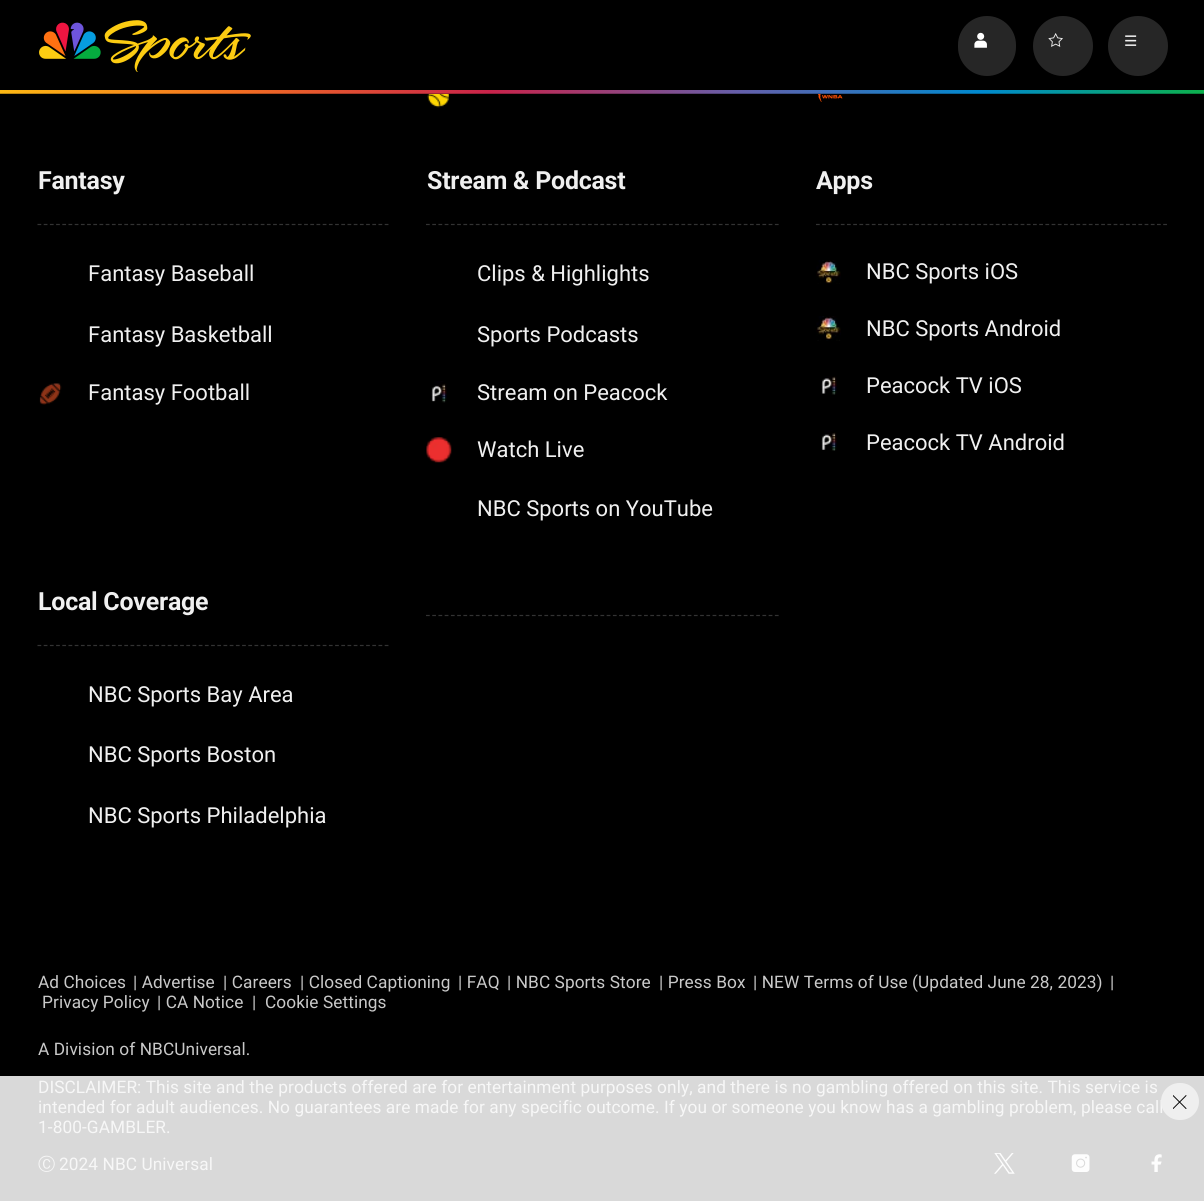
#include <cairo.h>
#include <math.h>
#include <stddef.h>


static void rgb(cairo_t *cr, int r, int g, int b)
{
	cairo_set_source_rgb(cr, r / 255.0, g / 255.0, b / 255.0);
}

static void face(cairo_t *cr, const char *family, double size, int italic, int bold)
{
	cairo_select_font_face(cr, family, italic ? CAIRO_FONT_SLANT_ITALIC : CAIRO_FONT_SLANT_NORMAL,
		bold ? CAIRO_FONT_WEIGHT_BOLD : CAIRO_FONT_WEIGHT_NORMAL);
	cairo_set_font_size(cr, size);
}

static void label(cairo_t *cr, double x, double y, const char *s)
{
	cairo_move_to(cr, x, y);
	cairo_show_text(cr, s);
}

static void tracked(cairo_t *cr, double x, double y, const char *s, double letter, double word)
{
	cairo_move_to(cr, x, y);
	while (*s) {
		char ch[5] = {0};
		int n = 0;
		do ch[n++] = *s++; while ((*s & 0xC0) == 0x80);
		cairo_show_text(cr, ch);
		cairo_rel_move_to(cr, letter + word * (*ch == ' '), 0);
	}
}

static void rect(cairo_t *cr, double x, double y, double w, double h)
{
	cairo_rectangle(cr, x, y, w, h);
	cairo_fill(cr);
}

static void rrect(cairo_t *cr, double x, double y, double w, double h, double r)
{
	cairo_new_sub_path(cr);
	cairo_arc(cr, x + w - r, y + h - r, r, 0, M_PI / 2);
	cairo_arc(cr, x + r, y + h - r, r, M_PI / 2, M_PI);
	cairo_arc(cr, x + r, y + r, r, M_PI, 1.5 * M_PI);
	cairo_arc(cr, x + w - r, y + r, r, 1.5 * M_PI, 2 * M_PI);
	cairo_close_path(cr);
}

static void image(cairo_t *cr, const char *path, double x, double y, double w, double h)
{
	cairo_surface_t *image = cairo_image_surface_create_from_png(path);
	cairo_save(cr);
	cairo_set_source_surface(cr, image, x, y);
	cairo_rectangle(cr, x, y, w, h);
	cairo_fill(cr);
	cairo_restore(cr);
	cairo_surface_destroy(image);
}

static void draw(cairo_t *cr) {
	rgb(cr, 0, 0, 0);
	cairo_paint(cr);
	image(cr, "image0.png", 39, 20, 212, 52);
	rgb(cr, 38, 38, 38);
	rrect(cr, 958, 16, 58, 60, 29);
	cairo_fill(cr);
	image(cr, "image1.png", 974, 32, 13, 16);
	cairo_arc(cr, 1063, 46, 30, 0, 2 * M_PI);
	cairo_fill(cr);
	image(cr, "image2.png", 1048, 33, 15, 14);
	cairo_arc(cr, 1138, 46, 30, 0, 2 * M_PI);
	cairo_fill(cr);
	image(cr, "image3.png", 1125, 35, 12, 11);
	image(cr, "image4.png", 0, 90, 1204, 4);
	rgb(cr, 217, 217, 217);
	rect(cr, 0, 1076, 1204, 125);
	image(cr, "image5.png", 427, 94, 22, 14);
	image(cr, "image6.png", 818, 94, 25, 8);
	cairo_new_path(cr);
	cairo_move_to(cr, 37.5, 224.5);
	cairo_line_to(cr, 389, 224.5);
	rgb(cr, 51, 51, 51);
	cairo_set_line_width(cr, 1.2);
	cairo_set_dash(cr, (double[]){3.75, 2.45}, 2, 0);
	cairo_stroke(cr);
	face(cr, "Roboto", 25, 0, 1);
	rgb(cr, 240, 240, 240);
	tracked(cr, 38, 189, "Fantasy", -0.25, 0);
	face(cr, "Roboto", 22, 0, 0);
	label(cr, 88, 281, "Fantasy Baseball");
	label(cr, 88, 342, "Fantasy Basketball");
	image(cr, "image7.png", 39, 383, 23, 22);
	label(cr, 88, 400, "Fantasy Football");
	cairo_new_path(cr);
	cairo_move_to(cr, 426, 224.5);
	cairo_line_to(cr, 779, 224.5);
	rgb(cr, 51, 51, 51);
	cairo_set_dash(cr, (double[]){3.75, 2.48}, 2, 0);
	cairo_stroke(cr);
	face(cr, "Roboto", 25, 0, 1);
	rgb(cr, 240, 240, 240);
	tracked(cr, 427, 189, "Stream & Podcast", -0.25, 0);
	face(cr, "Roboto", 22, 0, 0);
	label(cr, 477, 281, "Clips & Highlights");
	label(cr, 477, 342, "Sports Podcasts");
	image(cr, "image8.png", 431, 381, 16, 22);
	label(cr, 477, 400, "Stream on Peacock");
	image(cr, "image9.png", 426, 437, 26, 26);
	label(cr, 477, 457, "Watch Live");
	label(cr, 477, 516, "NBC Sports on YouTube");
	cairo_new_path(cr);
	cairo_move_to(cr, 816, 224.5);
	cairo_line_to(cr, 1167.5, 224.5);
	rgb(cr, 51, 51, 51);
	cairo_set_dash(cr, (double[]){3.75, 2.45}, 2, 0);
	cairo_stroke(cr);
	face(cr, "Roboto", 25, 0, 1);
	rgb(cr, 240, 240, 240);
	tracked(cr, 816, 189, "Apps", -0.25, 0);
	image(cr, "image10.png", 816, 260, 25, 24);
	face(cr, "Roboto", 22, 0, 0);
	label(cr, 866, 279, "NBC Sports iOS");
	image(cr, "image11.png", 816, 316, 25, 25);
	label(cr, 866, 336, "NBC Sports Android");
	image(cr, "image12.png", 821, 376, 16, 19);
	label(cr, 866, 393, "Peacock TV iOS");
	image(cr, "image13.png", 821, 430, 16, 21);
	label(cr, 866, 450, "Peacock TV Android");
	cairo_new_path(cr);
	cairo_move_to(cr, 37.5, 645.5);
	cairo_line_to(cr, 389, 645.5);
	rgb(cr, 51, 51, 51);
	cairo_stroke(cr);
	face(cr, "Roboto", 25, 0, 1);
	rgb(cr, 240, 240, 240);
	tracked(cr, 38, 610, "Local Coverage", -0.25, 0);
	face(cr, "Roboto", 22, 0, 0);
	label(cr, 88, 702, "NBC Sports Bay Area");
	label(cr, 88, 762, "NBC Sports Boston");
	label(cr, 88, 823, "NBC Sports Philadelphia");
	cairo_new_path(cr);
	cairo_move_to(cr, 426, 615.5);
	cairo_line_to(cr, 779, 615.5);
	rgb(cr, 51, 51, 51);
	cairo_set_dash(cr, (double[]){3.75, 2.48}, 2, 0);
	cairo_stroke(cr);
	face(cr, "Roboto", 17.25, 0, 0);
	rgb(cr, 201, 201, 201);
	tracked(cr, 38, 988, "Ad Choices", 0.09, 0);
	tracked(cr, 133, 988, "| Advertise", 0.09, 0);
	tracked(cr, 223, 988, "| Careers", 0.09, 0);
	tracked(cr, 300, 988, "| Closed Captioning", 0.09, 0);
	tracked(cr, 458, 988, "| FAQ", 0.09, 0);
	tracked(cr, 507, 988, "| NBC Sports Store", 0.09, 0);
	tracked(cr, 659, 988, "| Press Box", 0.09, 0);
	tracked(cr, 753, 988, "| NEW Terms of Use (Updated June 28, 2023)", 0.09, 0);
	tracked(cr, 1110, 988, "|", 0.09, 0);
	tracked(cr, 42, 1008, "Privacy Policy", 0.09, 0);
	tracked(cr, 157, 1008, "| CA Notice", 0.09, 0);
	tracked(cr, 252, 1008, "|", 0.09, 0);
	tracked(cr, 265, 1008, "Cookie Settings", 0.09, 0);
	tracked(cr, 38, 1055, "A Division of NBCUniversal.", 0.09, 0);
	rgb(cr, 247, 247, 247);
	tracked(cr, 38, 1093, "DISCLAIMER: This site and the products offered are for entertainment purposes only, and there is no gambling offered on this site. This service is", 0.09, 0);
	tracked(cr, 38, 1113, "intended for adult audiences. No guarantees are made for any specific outcome. If you or someone you know has a gambling problem, please call", 0.09, 0);
	tracked(cr, 38, 1133, "1-800-GAMBLER.", 0.09, 0);
	face(cr, "WenQuanYi Zen Hei Medium", 17.25, 0, 0);
	tracked(cr, 38, 1170, "Ⓒ", 0.09, 0);
	face(cr, "Roboto", 17.25, 0, 0);
	tracked(cr, 59, 1170, "2024 NBC Universal", 0.09, 0);
	image(cr, "image14.png", 994, 1153, 21, 21);
	image(cr, "image15.png", 1071, 1154, 19, 18);
	image(cr, "image16.png", 1151, 1154, 11, 18);
	rgb(cr, 239, 239, 239);
	rrect(cr, 1161, 1083, 38, 37, 18.5);
	cairo_fill(cr);
	image(cr, "image17.png", 1173, 1095, 14, 14);
}

int main(void) {
	cairo_surface_t *surface = cairo_image_surface_create(CAIRO_FORMAT_RGB24, 1204, 1201);
	cairo_t *cr = cairo_create(surface);
	cairo_font_options_t *options = cairo_font_options_create();
	cairo_font_options_set_hint_metrics(options, CAIRO_HINT_METRICS_OFF);
	cairo_font_options_set_hint_style(options, CAIRO_HINT_STYLE_NONE);
	cairo_set_font_options(cr, options);
	cairo_set_miter_limit(cr, 4);
	draw(cr);
	cairo_surface_write_to_png(surface, "render.png");
	cairo_font_options_destroy(options);
	cairo_destroy(cr);
	cairo_surface_destroy(surface);
	return 0;
}
